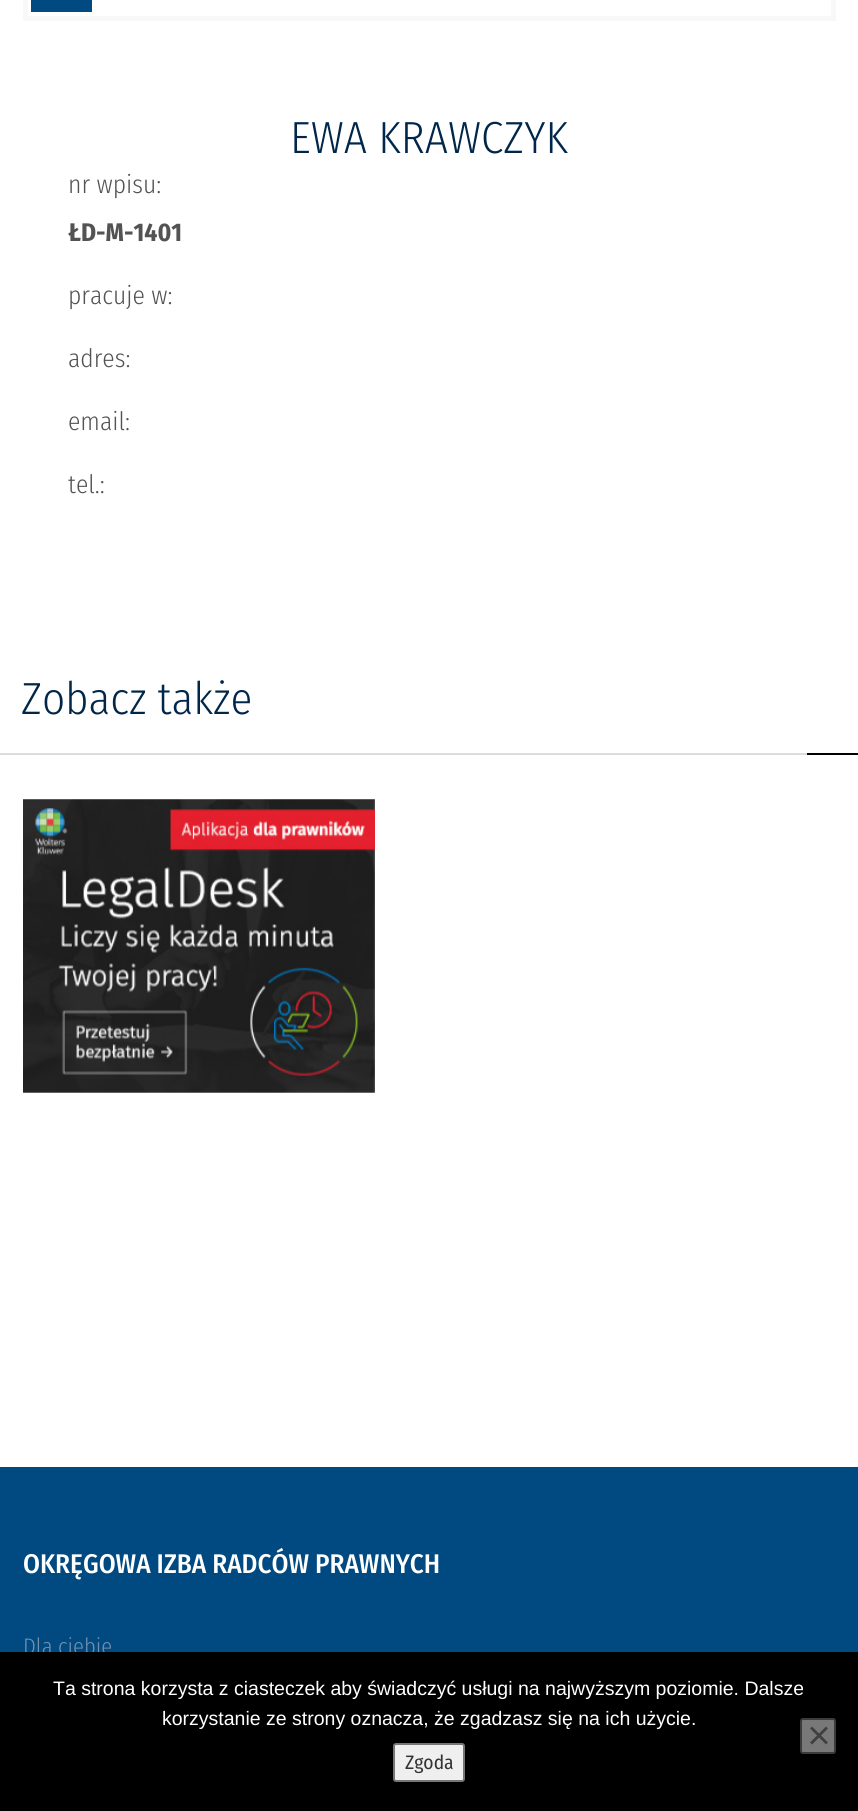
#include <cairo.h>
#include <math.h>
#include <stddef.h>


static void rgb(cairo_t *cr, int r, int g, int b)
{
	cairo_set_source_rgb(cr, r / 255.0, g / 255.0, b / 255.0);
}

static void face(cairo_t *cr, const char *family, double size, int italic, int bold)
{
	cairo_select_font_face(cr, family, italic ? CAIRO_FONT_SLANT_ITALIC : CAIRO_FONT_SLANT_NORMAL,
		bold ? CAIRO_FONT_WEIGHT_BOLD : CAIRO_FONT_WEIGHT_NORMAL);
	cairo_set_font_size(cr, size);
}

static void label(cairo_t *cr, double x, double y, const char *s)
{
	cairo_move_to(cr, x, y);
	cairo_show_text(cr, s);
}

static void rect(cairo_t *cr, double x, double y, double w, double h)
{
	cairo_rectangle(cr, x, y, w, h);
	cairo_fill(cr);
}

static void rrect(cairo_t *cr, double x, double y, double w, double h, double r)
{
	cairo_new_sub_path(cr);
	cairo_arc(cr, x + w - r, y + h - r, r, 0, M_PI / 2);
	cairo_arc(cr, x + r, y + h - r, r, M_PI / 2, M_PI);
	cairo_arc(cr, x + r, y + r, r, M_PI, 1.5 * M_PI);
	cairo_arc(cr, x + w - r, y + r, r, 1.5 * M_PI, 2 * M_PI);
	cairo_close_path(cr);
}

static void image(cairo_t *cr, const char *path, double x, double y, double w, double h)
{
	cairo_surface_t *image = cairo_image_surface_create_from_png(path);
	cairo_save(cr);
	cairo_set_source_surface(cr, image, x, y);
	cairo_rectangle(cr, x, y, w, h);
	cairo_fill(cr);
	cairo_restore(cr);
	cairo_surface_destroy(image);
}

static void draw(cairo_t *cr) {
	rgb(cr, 255, 255, 255);
	cairo_paint(cr);
	cairo_rectangle(cr, 25.5, -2.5, 808, 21);
	rgb(cr, 248, 248, 248);
	cairo_set_line_width(cr, 5);
	cairo_stroke(cr);
	rgb(cr, 0, 74, 129);
	rect(cr, 31, 0, 61, 12);
	face(cr, "Fira Sans Condensed Light", 45, 0, 0);
	rgb(cr, 0, 38, 74);
	label(cr, 290, 153, "EWA KRAWCZYK");
	face(cr, "Fira Sans Condensed Light", 25.5, 0, 0);
	rgb(cr, 83, 83, 83);
	label(cr, 68, 193, "nr wpisu:");
	face(cr, "Fira Sans Condensed", 25.5, 0, 1);
	label(cr, 68, 241, "ŁD-M-1401");
	face(cr, "Fira Sans Condensed Light", 25.5, 0, 0);
	label(cr, 68, 304, "pracuje w:");
	label(cr, 68, 367, "adres:");
	label(cr, 68, 430, "email:");
	label(cr, 68, 493, "tel.:");
	face(cr, "Fira Sans Condensed Light", 45, 0, 0);
	rgb(cr, 0, 38, 74);
	label(cr, 21, 714, "Zobacz także");
	rgb(cr, 220, 220, 220);
	rect(cr, 0, 753, 807, 2);
	rgb(cr, 0, 0, 0);
	rect(cr, 807, 753, 51, 2);
	image(cr, "image0.png", 23, 799, 352, 294);
	rgb(cr, 0, 74, 129);
	rect(cr, 0, 1467, 858, 185);
	face(cr, "Fira Sans Condensed Medium", 27, 0, 0);
	rgb(cr, 255, 255, 255);
	label(cr, 23, 1573, "OKRĘGOWA IZBA RADCÓW PRAWNYCH");
	face(cr, "Fira Sans Condensed Light", 22.5, 0, 0);
	rgb(cr, 118, 144, 171);
	label(cr, 23, 1654, "Dla ciebie");
	rgb(cr, 0, 0, 0);
	rect(cr, 0, 1652, 858, 159);
	face(cr, "Liberation Sans", 19.5, 0, 0);
	rgb(cr, 255, 255, 255);
	label(cr, 53, 1695, "Ta strona korzysta z ciasteczek aby świadczyć usługi na najwyższym poziomie. Dalsze");
	label(cr, 162, 1725, "korzystanie ze strony oznacza, że zgadzasz się na ich użycie.");
	rgb(cr, 120, 120, 120);
	rrect(cr, 801, 1719, 34, 34, 2);
	cairo_fill_preserve(cr);
	rgb(cr, 59, 59, 59);
	cairo_set_line_width(cr, 2);
	cairo_stroke(cr);
	rgb(cr, 64, 64, 64);
	cairo_new_path(cr);
	cairo_move_to(cr, 826, 1726.5);
	cairo_line_to(cr, 828, 1728.5);
	cairo_line_to(cr, 812, 1744.5);
	cairo_line_to(cr, 810, 1742.5);
	cairo_close_path(cr);
	cairo_fill(cr);
	cairo_new_path(cr);
	cairo_move_to(cr, 810, 1728.5);
	cairo_line_to(cr, 812, 1726.5);
	cairo_line_to(cr, 828, 1742.5);
	cairo_line_to(cr, 826, 1744.5);
	cairo_close_path(cr);
	cairo_fill(cr);
	rgb(cr, 239, 239, 239);
	rrect(cr, 394, 1744, 70, 37, 2);
	cairo_fill_preserve(cr);
	rgb(cr, 118, 118, 118);
	cairo_stroke(cr);
	face(cr, "Fira Sans Condensed", 19.5, 0, 0);
	rgb(cr, 51, 51, 51);
	label(cr, 405, 1769, "Zgoda");
}

int main(void) {
	cairo_surface_t *surface = cairo_image_surface_create(CAIRO_FORMAT_RGB24, 858, 1811);
	cairo_t *cr = cairo_create(surface);
	cairo_font_options_t *options = cairo_font_options_create();
	cairo_font_options_set_hint_metrics(options, CAIRO_HINT_METRICS_OFF);
	cairo_font_options_set_hint_style(options, CAIRO_HINT_STYLE_NONE);
	cairo_set_font_options(cr, options);
	cairo_set_miter_limit(cr, 4);
	draw(cr);
	cairo_surface_write_to_png(surface, "render.png");
	cairo_font_options_destroy(options);
	cairo_destroy(cr);
	cairo_surface_destroy(surface);
	return 0;
}
